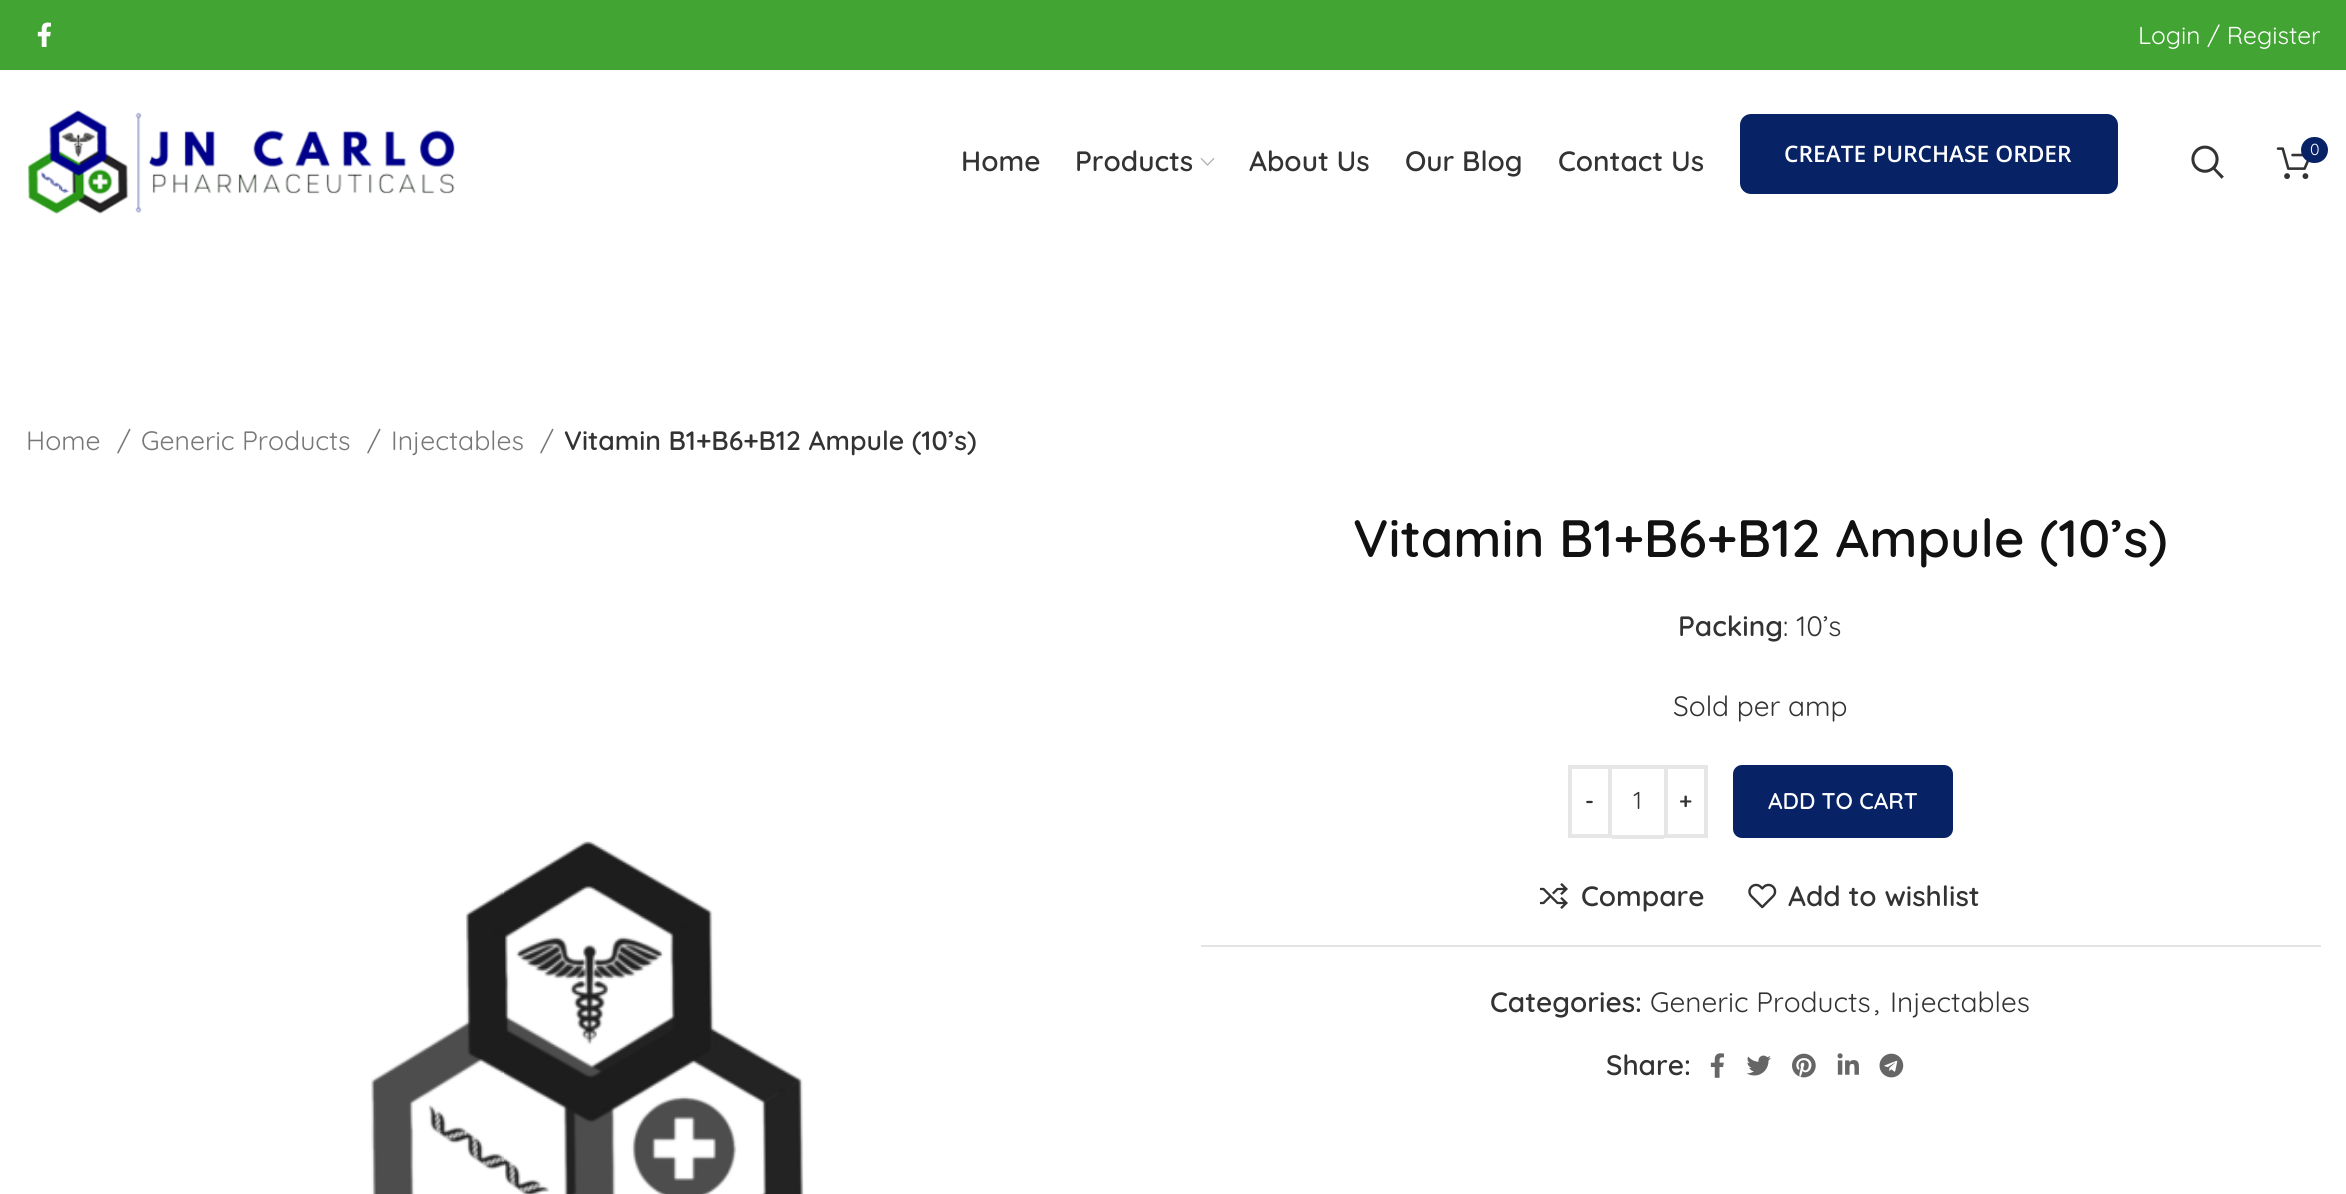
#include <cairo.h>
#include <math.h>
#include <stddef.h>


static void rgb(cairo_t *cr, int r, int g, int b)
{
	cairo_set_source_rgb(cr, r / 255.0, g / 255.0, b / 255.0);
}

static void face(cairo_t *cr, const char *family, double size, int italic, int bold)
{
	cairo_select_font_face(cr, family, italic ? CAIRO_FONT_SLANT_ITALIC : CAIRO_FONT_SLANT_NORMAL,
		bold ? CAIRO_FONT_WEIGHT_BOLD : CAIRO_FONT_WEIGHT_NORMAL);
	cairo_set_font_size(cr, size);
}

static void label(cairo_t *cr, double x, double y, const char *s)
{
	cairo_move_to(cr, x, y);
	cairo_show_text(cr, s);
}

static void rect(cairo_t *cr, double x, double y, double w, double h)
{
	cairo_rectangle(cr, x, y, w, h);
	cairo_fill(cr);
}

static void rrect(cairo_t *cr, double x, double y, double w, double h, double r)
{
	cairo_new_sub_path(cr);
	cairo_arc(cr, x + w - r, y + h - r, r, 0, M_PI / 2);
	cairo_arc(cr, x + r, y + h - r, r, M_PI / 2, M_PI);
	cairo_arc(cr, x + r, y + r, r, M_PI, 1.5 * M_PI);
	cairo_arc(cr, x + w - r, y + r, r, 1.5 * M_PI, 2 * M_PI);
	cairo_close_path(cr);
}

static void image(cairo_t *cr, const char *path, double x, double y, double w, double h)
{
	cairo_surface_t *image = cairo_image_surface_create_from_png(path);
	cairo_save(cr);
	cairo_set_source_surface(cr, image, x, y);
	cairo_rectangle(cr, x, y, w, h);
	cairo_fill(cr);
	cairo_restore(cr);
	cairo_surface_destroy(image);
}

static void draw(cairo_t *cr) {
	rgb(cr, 255, 255, 255);
	cairo_paint(cr);
	rgb(cr, 66, 164, 50);
	rect(cr, 0, 0, 2346, 70);
	image(cr, "image0.png", 37, 22, 14, 25);
	face(cr, "Quicksand", 24.5, 0, 0);
	rgb(cr, 255, 255, 255);
	label(cr, 2138, 44, "Login / Register");
	image(cr, "image1.png", 28, 110, 427, 104);
	face(cr, "Quicksand SemiBold", 28, 0, 0);
	rgb(cr, 51, 51, 51);
	label(cr, 961, 171, "Home");
	label(cr, 1075, 171, "Products");
	image(cr, "image2.png", 1200, 158, 15, 8);
	label(cr, 1249, 171, "About Us");
	label(cr, 1405, 171, "Our Blog");
	label(cr, 1558, 171, "Contact Us");
	rgb(cr, 7, 35, 101);
	rrect(cr, 1740, 114, 378, 80, 11);
	cairo_fill(cr);
	face(cr, "Open Sans SemiBold", 22.75, 0, 0);
	rgb(cr, 255, 255, 255);
	label(cr, 1784, 162, "CREATE PURCHASE ORDER");
	image(cr, "image3.png", 2191, 145, 33, 34);
	image(cr, "image4.png", 2276, 147, 33, 33);
	rgb(cr, 7, 35, 101);
	rrect(cr, 2301, 137, 27, 26, 13);
	cairo_fill(cr);
	face(cr, "Quicksand", 16, 0, 0);
	rgb(cr, 255, 255, 255);
	label(cr, 2310, 155, "0");
	face(cr, "Quicksand", 26.6, 0, 0);
	rgb(cr, 119, 119, 119);
	label(cr, 26, 450, "Home");
	label(cr, 117, 450, "/");
	label(cr, 141, 450, "Generic Products");
	label(cr, 367, 450, "/");
	label(cr, 391, 450, "Injectables");
	label(cr, 540, 450, "/");
	face(cr, "Quicksand SemiBold", 26.6, 0, 0);
	rgb(cr, 51, 51, 51);
	label(cr, 564, 450, "Vitamin B1+B6+B12 Ampule (10’s)");
	image(cr, "image5.png", 371, 841, 433, 353);
	face(cr, "Quicksand SemiBold", 52.5, 0, 0);
	rgb(cr, 17, 17, 17);
	label(cr, 1353, 557, "Vitamin B1+B6+B12 Ampule (10’s)");
	face(cr, "Quicksand SemiBold", 28, 0, 0);
	rgb(cr, 51, 51, 51);
	label(cr, 1678, 636, "Packing");
	face(cr, "Quicksand", 28, 0, 0);
	label(cr, 1783, 636, ": 10’s");
	label(cr, 1673, 716, "Sold per amp");
	cairo_rectangle(cr, 1570, 767, 40, 69);
	rgb(cr, 230, 230, 230);
	cairo_set_line_width(cr, 4);
	cairo_stroke(cr);
	face(cr, "Quicksand SemiBold", 22.75, 0, 0);
	rgb(cr, 51, 51, 51);
	label(cr, 1585, 809, "-");
	rgb(cr, 230, 230, 230);
	rect(cr, 1612, 765, 52, 4);
	rect(cr, 1612, 835, 52, 4);
	face(cr, "Quicksand", 24.5, 0, 0);
	rgb(cr, 51, 51, 51);
	label(cr, 1633, 809, "1");
	cairo_rectangle(cr, 1666, 767, 40, 69);
	rgb(cr, 230, 230, 230);
	cairo_stroke(cr);
	face(cr, "Quicksand SemiBold", 22.75, 0, 0);
	rgb(cr, 51, 51, 51);
	label(cr, 1679, 809, "+");
	rgb(cr, 7, 35, 101);
	rrect(cr, 1733, 765, 220, 73, 9);
	cairo_fill(cr);
	rgb(cr, 255, 255, 255);
	label(cr, 1768, 809, "ADD TO CART");
	image(cr, "image6.png", 1540, 883, 28, 26);
	face(cr, "Quicksand SemiBold", 28, 0, 0);
	rgb(cr, 51, 51, 51);
	label(cr, 1581, 906, "Compare");
	image(cr, "image7.png", 1748, 883, 29, 26);
	label(cr, 1788, 906, "Add to wishlist");
	rgb(cr, 228, 228, 228);
	rect(cr, 1201, 945, 1120, 2);
	rgb(cr, 51, 51, 51);
	label(cr, 1490, 1012, "Categories:");
	face(cr, "Quicksand", 28, 0, 0);
	label(cr, 1650, 1012, "Generic Products");
	label(cr, 1874, 1012, ",");
	label(cr, 1890, 1012, "Injectables");
	face(cr, "Quicksand SemiBold", 28, 0, 0);
	label(cr, 1606, 1075, "Share:");
	image(cr, "image8.png", 1710, 1053, 14, 25);
	image(cr, "image9.png", 1746, 1055, 25, 21);
	image(cr, "image10.png", 1792, 1053, 24, 25);
	image(cr, "image11.png", 1837, 1053, 22, 22);
	image(cr, "image12.png", 1879, 1053, 25, 25);
}

int main(void) {
	cairo_surface_t *surface = cairo_image_surface_create(CAIRO_FORMAT_RGB24, 2346, 1194);
	cairo_t *cr = cairo_create(surface);
	cairo_font_options_t *options = cairo_font_options_create();
	cairo_font_options_set_hint_metrics(options, CAIRO_HINT_METRICS_OFF);
	cairo_font_options_set_hint_style(options, CAIRO_HINT_STYLE_NONE);
	cairo_set_font_options(cr, options);
	cairo_set_miter_limit(cr, 4);
	draw(cr);
	cairo_surface_write_to_png(surface, "render.png");
	cairo_font_options_destroy(options);
	cairo_destroy(cr);
	cairo_surface_destroy(surface);
	return 0;
}
